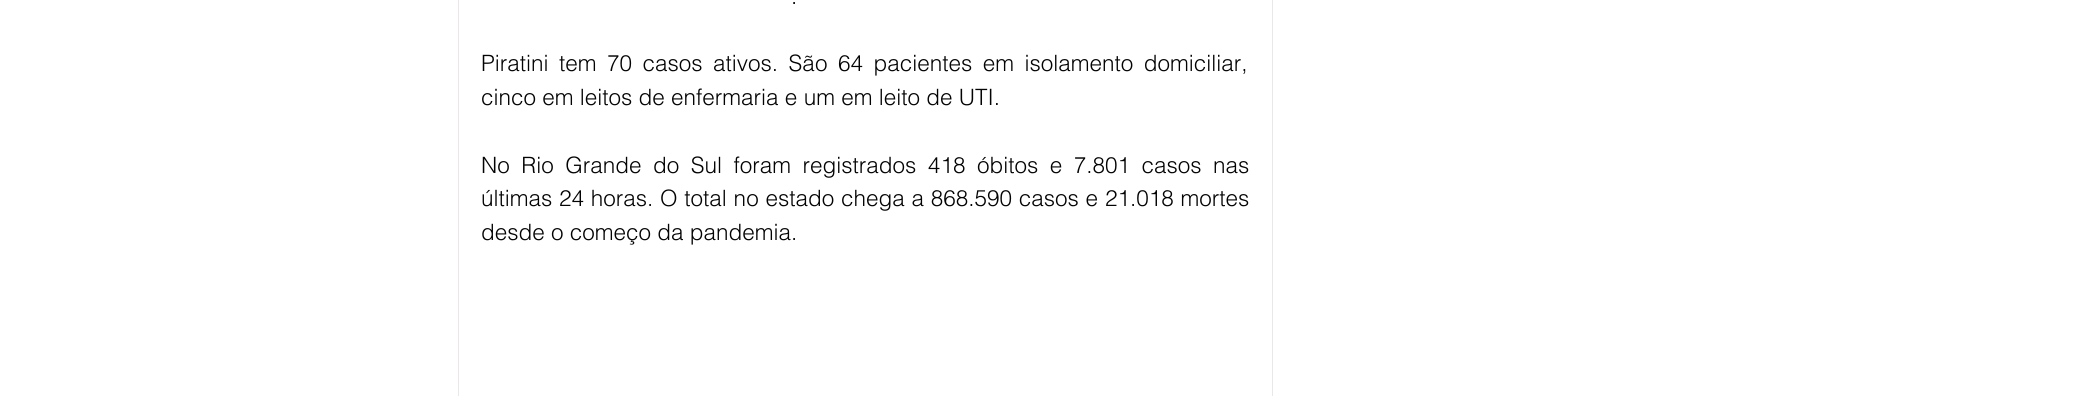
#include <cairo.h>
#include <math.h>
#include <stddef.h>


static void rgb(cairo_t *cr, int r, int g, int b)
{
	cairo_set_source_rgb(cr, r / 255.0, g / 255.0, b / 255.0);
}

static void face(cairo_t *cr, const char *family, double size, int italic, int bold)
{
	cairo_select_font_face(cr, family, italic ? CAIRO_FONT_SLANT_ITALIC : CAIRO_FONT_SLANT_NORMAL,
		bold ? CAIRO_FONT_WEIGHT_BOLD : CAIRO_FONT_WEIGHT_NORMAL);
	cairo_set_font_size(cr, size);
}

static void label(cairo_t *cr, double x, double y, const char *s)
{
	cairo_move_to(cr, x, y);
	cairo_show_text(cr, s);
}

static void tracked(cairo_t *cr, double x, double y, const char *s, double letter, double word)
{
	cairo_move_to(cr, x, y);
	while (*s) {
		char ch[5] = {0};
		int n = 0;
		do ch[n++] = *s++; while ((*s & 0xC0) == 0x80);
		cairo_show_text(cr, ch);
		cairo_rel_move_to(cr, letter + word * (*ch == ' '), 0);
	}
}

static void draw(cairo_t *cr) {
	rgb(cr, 255, 255, 255);
	cairo_paint(cr);
	cairo_rectangle(cr, 458.5, -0.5, 814, 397);
	rgb(cr, 233, 231, 231);
	cairo_set_line_width(cr, 1);
	cairo_stroke(cr);
	face(cr, "helvetica Light", 22.5, 0, 0);
	rgb(cr, 3, 3, 3);
	label(cr, 791, 4, ".");
	tracked(cr, 481, 71, "Piratini tem 70 casos ativos. São 64 pacientes em isolamento domiciliar,", 0, 4.25);
	label(cr, 481, 105, "cinco em leitos de enfermaria e um em leito de UTI.");
	tracked(cr, 481, 173, "No Rio Grande do Sul foram registrados 418 óbitos e 7.801 casos nas", 0, 5.25);
	tracked(cr, 481, 206, "últimas 24 horas. O total no estado chega a 868.590 casos e 21.018 mortes", 0, 0.5);
	label(cr, 481, 240, "desde o começo da pandemia.");
}

int main(void) {
	cairo_surface_t *surface = cairo_image_surface_create(CAIRO_FORMAT_RGB24, 2089, 396);
	cairo_t *cr = cairo_create(surface);
	cairo_font_options_t *options = cairo_font_options_create();
	cairo_font_options_set_hint_metrics(options, CAIRO_HINT_METRICS_OFF);
	cairo_font_options_set_hint_style(options, CAIRO_HINT_STYLE_NONE);
	cairo_set_font_options(cr, options);
	cairo_set_miter_limit(cr, 4);
	draw(cr);
	cairo_surface_write_to_png(surface, "render.png");
	cairo_font_options_destroy(options);
	cairo_destroy(cr);
	cairo_surface_destroy(surface);
	return 0;
}
